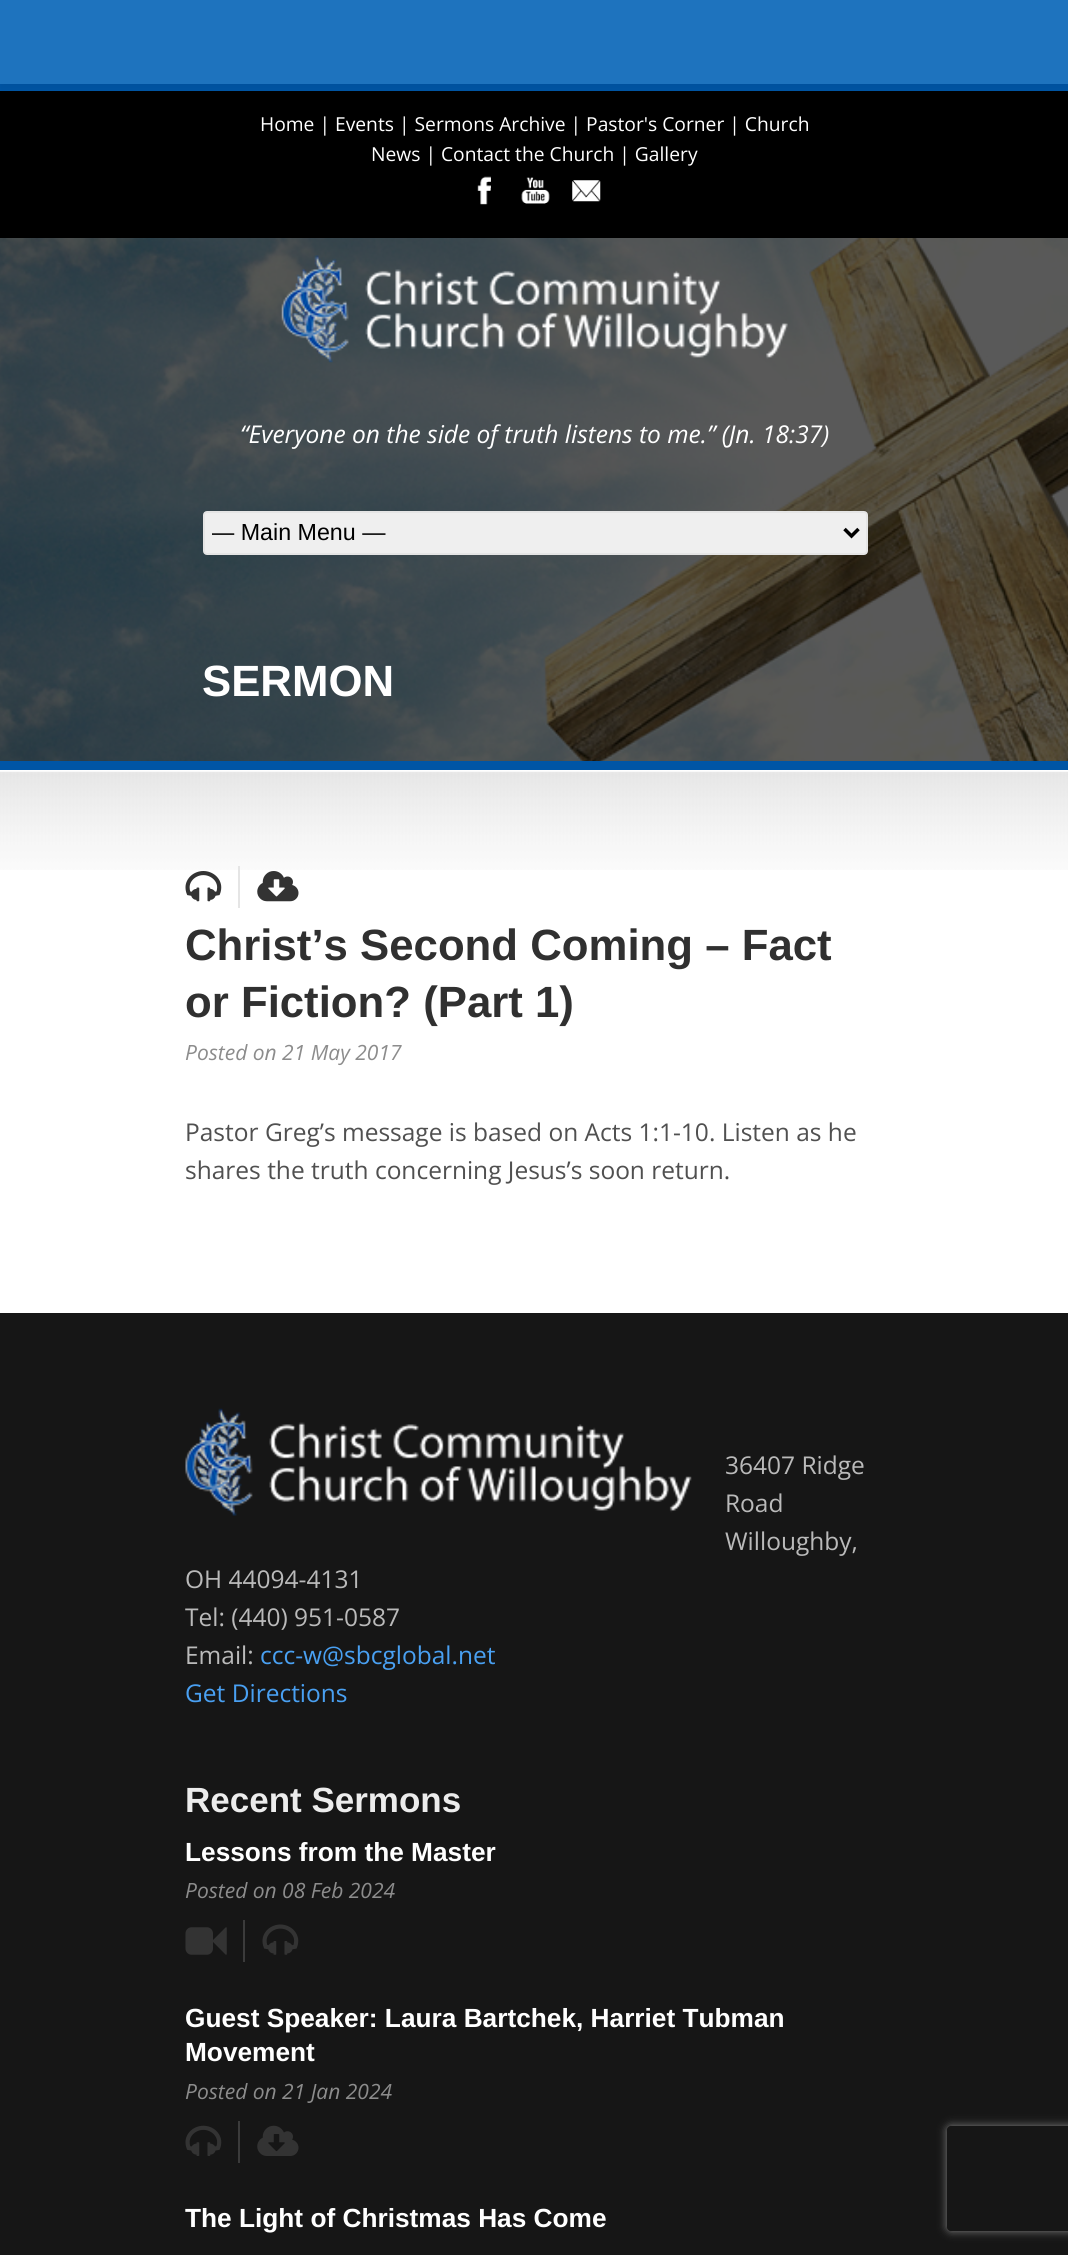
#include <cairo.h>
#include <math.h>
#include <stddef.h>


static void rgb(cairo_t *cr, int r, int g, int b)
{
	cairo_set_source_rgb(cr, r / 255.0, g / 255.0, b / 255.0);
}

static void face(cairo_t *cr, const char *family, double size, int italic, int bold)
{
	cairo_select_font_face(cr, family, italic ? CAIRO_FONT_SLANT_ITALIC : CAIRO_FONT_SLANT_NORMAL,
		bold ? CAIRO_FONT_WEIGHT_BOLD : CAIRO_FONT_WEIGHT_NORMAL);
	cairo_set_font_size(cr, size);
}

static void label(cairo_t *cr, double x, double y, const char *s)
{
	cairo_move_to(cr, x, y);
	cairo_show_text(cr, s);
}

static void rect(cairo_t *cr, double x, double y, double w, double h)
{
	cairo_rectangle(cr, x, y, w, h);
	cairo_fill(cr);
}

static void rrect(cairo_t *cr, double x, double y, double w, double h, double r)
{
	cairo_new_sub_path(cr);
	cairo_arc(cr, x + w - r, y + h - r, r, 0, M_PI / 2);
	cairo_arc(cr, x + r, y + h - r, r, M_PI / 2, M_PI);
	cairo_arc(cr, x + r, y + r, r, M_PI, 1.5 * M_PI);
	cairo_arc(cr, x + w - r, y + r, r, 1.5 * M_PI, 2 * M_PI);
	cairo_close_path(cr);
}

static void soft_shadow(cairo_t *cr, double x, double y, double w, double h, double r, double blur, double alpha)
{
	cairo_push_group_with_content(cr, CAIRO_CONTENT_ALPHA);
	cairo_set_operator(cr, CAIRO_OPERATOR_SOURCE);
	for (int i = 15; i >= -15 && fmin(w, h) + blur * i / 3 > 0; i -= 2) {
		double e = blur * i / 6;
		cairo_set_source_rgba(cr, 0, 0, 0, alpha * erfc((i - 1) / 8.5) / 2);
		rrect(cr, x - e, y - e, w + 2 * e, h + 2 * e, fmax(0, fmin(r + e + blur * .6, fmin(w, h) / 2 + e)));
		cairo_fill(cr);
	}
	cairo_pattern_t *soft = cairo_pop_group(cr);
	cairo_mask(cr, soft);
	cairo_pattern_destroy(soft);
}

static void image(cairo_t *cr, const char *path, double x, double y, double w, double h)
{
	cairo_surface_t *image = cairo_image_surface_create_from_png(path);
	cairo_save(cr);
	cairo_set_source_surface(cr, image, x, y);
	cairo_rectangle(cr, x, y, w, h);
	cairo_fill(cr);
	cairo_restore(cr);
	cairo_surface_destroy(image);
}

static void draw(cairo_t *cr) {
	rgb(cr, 255, 255, 255);
	cairo_paint(cr);
	rgb(cr, 0, 0, 0);
	rect(cr, 0, 91, 1068, 147);
	rgb(cr, 0, 85, 165);
	rect(cr, 0, 84, 1068, 7);
	rgb(cr, 0, 0, 0);
	soft_shadow(cr, 0, 5, 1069, 84, 0, 3.5, 0.05);
	rgb(cr, 30, 115, 190);
	rect(cr, 0, 0, 1068, 84);
	face(cr, "Open Sans", 19.25, 0, 0);
	rgb(cr, 255, 255, 255);
	label(cr, 260, 131, "Home | Events | Sermons Archive | Pastor's Corner | Church");
	label(cr, 371, 161, "News | Contact the Church | Gallery");
	image(cr, "image0.png", 477, 176, 14, 29);
	image(cr, "image1.png", 521, 177, 29, 27);
	image(cr, "image2.png", 572, 180, 29, 22);
	image(cr, "image3.png", 0, 238, 1068, 523);
	image(cr, "image4.png", 281, 255, 507, 108);
	face(cr, "Open Sans", 24.5, 1, 0);
	label(cr, 240, 443, "“Everyone on the side of truth listens to me.” (Jn. 18:37)");
	rgb(cr, 239, 239, 239);
	rrect(cr, 204, 512, 663, 42, 3);
	cairo_fill_preserve(cr);
	rgb(cr, 229, 229, 229);
	cairo_stroke(cr);
	cairo_new_path(cr);
	cairo_move_to(cr, 844.5, 529);
	cairo_line_to(cr, 851.5, 536);
	cairo_line_to(cr, 858.5, 529);
	rgb(cr, 0, 0, 0);
	cairo_set_line_width(cr, 3.5);
	cairo_stroke(cr);
	cairo_save(cr);
	cairo_rectangle(cr, 212, 518, 626, 30);
	cairo_clip(cr);
	face(cr, "Liberation Sans", 23.25, 0, 0);
	label(cr, 211, 540, "— Main Menu —");
	cairo_restore(cr);
	face(cr, "Liberation Sans", 43.75, 0, 1);
	rgb(cr, 255, 255, 255);
	label(cr, 202, 696, "SERMON");
	rgb(cr, 0, 85, 165);
	rect(cr, 0, 761, 1068, 9);
	image(cr, "image5.png", 0, 771, 1068, 99);
	image(cr, "image6.png", 185, 871, 37, 31);
	rgb(cr, 229, 229, 229);
	rect(cr, 238, 866, 2, 42);
	image(cr, "image7.png", 257, 871, 42, 31);
	rgb(cr, 48, 48, 48);
	label(cr, 185, 960, "Christ’s Second Coming – Fact");
	label(cr, 185, 1017, "or Fiction? (Part 1)");
	face(cr, "Open Sans", 21, 1, 0);
	rgb(cr, 140, 140, 140);
	label(cr, 185, 1060, "Posted on 21 May 2017");
	face(cr, "Open Sans", 24.5, 0, 0);
	rgb(cr, 80, 80, 80);
	label(cr, 185, 1141, "Pastor Greg’s message is based on Acts 1:1-10. Listen as he");
	label(cr, 185, 1179, "shares the truth concerning Jesus’s soon return.");
	rgb(cr, 22, 22, 22);
	rect(cr, 0, 1313, 1068, 942);
	image(cr, "image8.png", 185, 1408, 507, 108);
	rgb(cr, 186, 186, 186);
	label(cr, 725, 1474, "36407 Ridge");
	label(cr, 725, 1512, "Road");
	label(cr, 725, 1550, "Willoughby,");
	label(cr, 185, 1588, "OH 44094-4131");
	label(cr, 185, 1626, "Tel: (440) 951-0587");
	label(cr, 185, 1664, "Email:");
	rgb(cr, 73, 160, 242);
	label(cr, 260, 1664, "ccc-w@sbcglobal.net");
	label(cr, 185, 1702, "Get Directions");
	face(cr, "Liberation Sans", 35, 0, 1);
	rgb(cr, 236, 236, 236);
	label(cr, 185, 1812, "Recent Sermons");
	face(cr, "Liberation Sans", 26.25, 0, 1);
	rgb(cr, 255, 255, 255);
	label(cr, 185, 1861, "Lessons from the Master");
	face(cr, "Open Sans", 21, 1, 0);
	rgb(cr, 140, 140, 140);
	label(cr, 185, 1898, "Posted on 08 Feb 2024");
	image(cr, "image9.png", 185, 1927, 42, 28);
	rgb(cr, 59, 59, 59);
	rect(cr, 243, 1920, 2, 42);
	image(cr, "image10.png", 262, 1924, 37, 31);
	face(cr, "Liberation Sans", 26.25, 0, 1);
	rgb(cr, 255, 255, 255);
	label(cr, 185, 2027, "Guest Speaker: Laura Bartchek, Harriet Tubman");
	label(cr, 185, 2061, "Movement");
	face(cr, "Open Sans", 21, 1, 0);
	rgb(cr, 140, 140, 140);
	label(cr, 185, 2099, "Posted on 21 Jan 2024");
	image(cr, "image11.png", 185, 2125, 37, 31);
	rgb(cr, 59, 59, 59);
	rect(cr, 238, 2121, 2, 42);
	image(cr, "image12.png", 257, 2125, 42, 31);
	face(cr, "Liberation Sans", 26.25, 0, 1);
	rgb(cr, 255, 255, 255);
	label(cr, 185, 2227, "The Light of Christmas Has Come");
	cairo_save(cr);
	cairo_set_fill_rule(cr, CAIRO_FILL_RULE_EVEN_ODD);
	cairo_new_path(cr);
	cairo_move_to(cr, 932, 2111);
	cairo_line_to(cr, 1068, 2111);
	cairo_line_to(cr, 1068, 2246);
	cairo_line_to(cr, 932, 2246);
	cairo_close_path(cr);
	cairo_move_to(cr, 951, 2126);
	cairo_line_to(cr, 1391, 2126);
	cairo_curve_to(cr, 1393, 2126, 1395, 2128, 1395, 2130);
	cairo_line_to(cr, 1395, 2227);
	cairo_curve_to(cr, 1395, 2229, 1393, 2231, 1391, 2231);
	cairo_line_to(cr, 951, 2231);
	cairo_curve_to(cr, 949, 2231, 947, 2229, 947, 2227);
	cairo_line_to(cr, 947, 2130);
	cairo_curve_to(cr, 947, 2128, 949, 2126, 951, 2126);
	cairo_close_path(cr);
	cairo_clip(cr);
	rgb(cr, 128, 128, 128);
	soft_shadow(cr, 947, 2126, 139, 105, 4, 4.5, 1);
	cairo_restore(cr);
}

int main(void) {
	cairo_surface_t *surface = cairo_image_surface_create(CAIRO_FORMAT_RGB24, 1068, 2255);
	cairo_t *cr = cairo_create(surface);
	cairo_font_options_t *options = cairo_font_options_create();
	cairo_font_options_set_hint_metrics(options, CAIRO_HINT_METRICS_OFF);
	cairo_font_options_set_hint_style(options, CAIRO_HINT_STYLE_NONE);
	cairo_set_font_options(cr, options);
	cairo_set_miter_limit(cr, 4);
	draw(cr);
	cairo_surface_write_to_png(surface, "render.png");
	cairo_font_options_destroy(options);
	cairo_destroy(cr);
	cairo_surface_destroy(surface);
	return 0;
}
